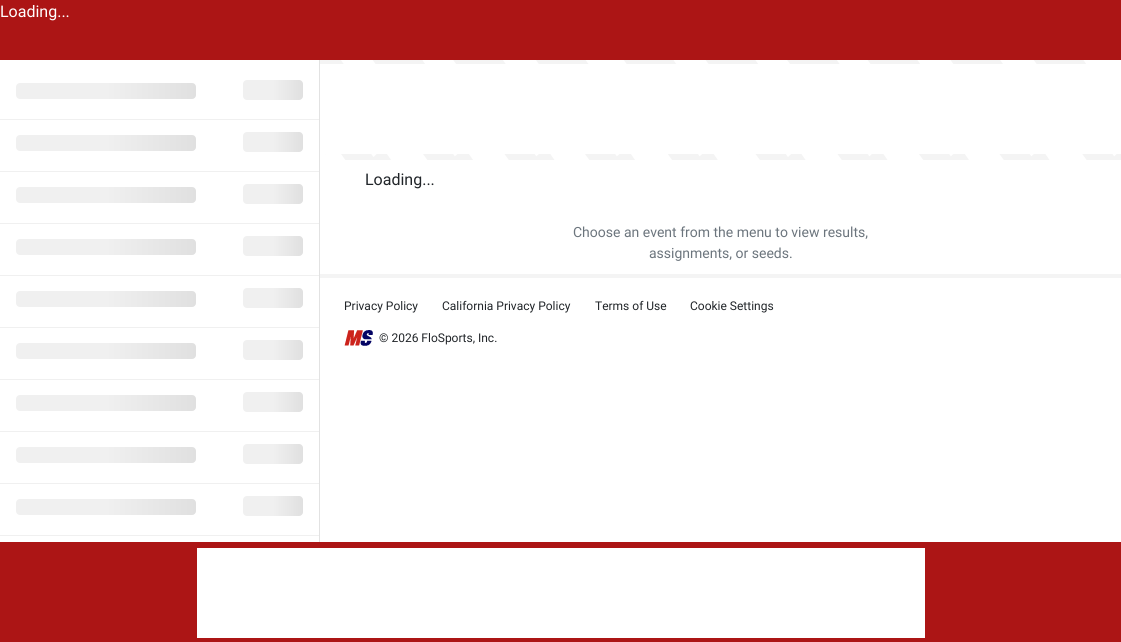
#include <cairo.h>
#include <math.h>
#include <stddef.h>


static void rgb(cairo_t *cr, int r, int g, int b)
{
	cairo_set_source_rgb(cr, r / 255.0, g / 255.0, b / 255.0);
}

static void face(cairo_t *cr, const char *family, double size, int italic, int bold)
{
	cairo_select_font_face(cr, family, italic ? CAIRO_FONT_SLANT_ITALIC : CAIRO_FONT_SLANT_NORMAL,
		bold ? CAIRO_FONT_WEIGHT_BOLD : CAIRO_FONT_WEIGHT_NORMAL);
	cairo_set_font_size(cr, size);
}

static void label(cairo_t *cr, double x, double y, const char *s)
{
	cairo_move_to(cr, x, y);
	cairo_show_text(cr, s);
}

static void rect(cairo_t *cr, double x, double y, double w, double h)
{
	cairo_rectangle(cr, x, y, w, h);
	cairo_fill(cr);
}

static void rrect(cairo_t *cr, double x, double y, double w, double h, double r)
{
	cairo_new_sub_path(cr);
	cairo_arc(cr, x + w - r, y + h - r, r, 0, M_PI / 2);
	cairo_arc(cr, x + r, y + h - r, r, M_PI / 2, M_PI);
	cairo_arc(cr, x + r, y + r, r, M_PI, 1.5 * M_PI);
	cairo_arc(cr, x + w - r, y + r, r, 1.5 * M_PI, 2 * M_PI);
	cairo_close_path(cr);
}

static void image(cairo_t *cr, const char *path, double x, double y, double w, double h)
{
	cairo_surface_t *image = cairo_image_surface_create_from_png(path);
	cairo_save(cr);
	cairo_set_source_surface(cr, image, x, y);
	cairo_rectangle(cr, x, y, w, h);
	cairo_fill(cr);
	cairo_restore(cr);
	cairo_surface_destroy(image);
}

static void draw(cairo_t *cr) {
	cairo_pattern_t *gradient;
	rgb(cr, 255, 255, 255);
	cairo_paint(cr);
	rgb(cr, 172, 21, 21);
	rect(cr, 0, 0, 1121, 60);
	face(cr, "Roboto", 16, 0, 0);
	rgb(cr, 255, 255, 255);
	label(cr, 0, 17, "Loading...");
	rgb(cr, 226, 226, 226);
	rect(cr, 319, 60, 1, 482);
	rgb(cr, 240, 240, 240);
	rect(cr, 0, 119, 319, 1);
	gradient = cairo_pattern_create_linear(16, 91, 376, 91);
	cairo_pattern_add_color_stop_rgba(gradient, 0.25, 0.941, 0.941, 0.941, 1);
	cairo_pattern_add_color_stop_rgba(gradient, 0.5, 0.878, 0.878, 0.878, 1);
	cairo_pattern_add_color_stop_rgba(gradient, 0.75, 0.941, 0.941, 0.941, 1);
	cairo_set_source(cr, gradient);
	cairo_pattern_destroy(gradient);
	rrect(cr, 16, 83, 180, 16, 4);
	cairo_fill(cr);
	gradient = cairo_pattern_create_linear(243, 90, 363, 90);
	cairo_pattern_add_color_stop_rgba(gradient, 0.25, 0.941, 0.941, 0.941, 1);
	cairo_pattern_add_color_stop_rgba(gradient, 0.5, 0.878, 0.878, 0.878, 1);
	cairo_pattern_add_color_stop_rgba(gradient, 0.75, 0.941, 0.941, 0.941, 1);
	cairo_set_source(cr, gradient);
	cairo_pattern_destroy(gradient);
	rrect(cr, 243, 80, 60, 20, 4);
	cairo_fill(cr);
	rgb(cr, 240, 240, 240);
	rect(cr, 0, 171, 319, 1);
	gradient = cairo_pattern_create_linear(16, 143, 376, 143);
	cairo_pattern_add_color_stop_rgba(gradient, 0.25, 0.941, 0.941, 0.941, 1);
	cairo_pattern_add_color_stop_rgba(gradient, 0.5, 0.878, 0.878, 0.878, 1);
	cairo_pattern_add_color_stop_rgba(gradient, 0.75, 0.941, 0.941, 0.941, 1);
	cairo_set_source(cr, gradient);
	cairo_pattern_destroy(gradient);
	rrect(cr, 16, 135, 180, 16, 4);
	cairo_fill(cr);
	gradient = cairo_pattern_create_linear(243, 142, 363, 142);
	cairo_pattern_add_color_stop_rgba(gradient, 0.25, 0.941, 0.941, 0.941, 1);
	cairo_pattern_add_color_stop_rgba(gradient, 0.5, 0.878, 0.878, 0.878, 1);
	cairo_pattern_add_color_stop_rgba(gradient, 0.75, 0.941, 0.941, 0.941, 1);
	cairo_set_source(cr, gradient);
	cairo_pattern_destroy(gradient);
	rrect(cr, 243, 132, 60, 20, 4);
	cairo_fill(cr);
	rgb(cr, 240, 240, 240);
	rect(cr, 0, 223, 319, 1);
	gradient = cairo_pattern_create_linear(16, 195, 376, 195);
	cairo_pattern_add_color_stop_rgba(gradient, 0.25, 0.941, 0.941, 0.941, 1);
	cairo_pattern_add_color_stop_rgba(gradient, 0.5, 0.878, 0.878, 0.878, 1);
	cairo_pattern_add_color_stop_rgba(gradient, 0.75, 0.941, 0.941, 0.941, 1);
	cairo_set_source(cr, gradient);
	cairo_pattern_destroy(gradient);
	rrect(cr, 16, 187, 180, 16, 4);
	cairo_fill(cr);
	gradient = cairo_pattern_create_linear(243, 194, 363, 194);
	cairo_pattern_add_color_stop_rgba(gradient, 0.25, 0.941, 0.941, 0.941, 1);
	cairo_pattern_add_color_stop_rgba(gradient, 0.5, 0.878, 0.878, 0.878, 1);
	cairo_pattern_add_color_stop_rgba(gradient, 0.75, 0.941, 0.941, 0.941, 1);
	cairo_set_source(cr, gradient);
	cairo_pattern_destroy(gradient);
	rrect(cr, 243, 184, 60, 20, 4);
	cairo_fill(cr);
	rgb(cr, 240, 240, 240);
	rect(cr, 0, 275, 319, 1);
	gradient = cairo_pattern_create_linear(16, 247, 376, 247);
	cairo_pattern_add_color_stop_rgba(gradient, 0.25, 0.941, 0.941, 0.941, 1);
	cairo_pattern_add_color_stop_rgba(gradient, 0.5, 0.878, 0.878, 0.878, 1);
	cairo_pattern_add_color_stop_rgba(gradient, 0.75, 0.941, 0.941, 0.941, 1);
	cairo_set_source(cr, gradient);
	cairo_pattern_destroy(gradient);
	rrect(cr, 16, 239, 180, 16, 4);
	cairo_fill(cr);
	gradient = cairo_pattern_create_linear(243, 246, 363, 246);
	cairo_pattern_add_color_stop_rgba(gradient, 0.25, 0.941, 0.941, 0.941, 1);
	cairo_pattern_add_color_stop_rgba(gradient, 0.5, 0.878, 0.878, 0.878, 1);
	cairo_pattern_add_color_stop_rgba(gradient, 0.75, 0.941, 0.941, 0.941, 1);
	cairo_set_source(cr, gradient);
	cairo_pattern_destroy(gradient);
	rrect(cr, 243, 236, 60, 20, 4);
	cairo_fill(cr);
	rgb(cr, 240, 240, 240);
	rect(cr, 0, 327, 319, 1);
	gradient = cairo_pattern_create_linear(16, 299, 376, 299);
	cairo_pattern_add_color_stop_rgba(gradient, 0.25, 0.941, 0.941, 0.941, 1);
	cairo_pattern_add_color_stop_rgba(gradient, 0.5, 0.878, 0.878, 0.878, 1);
	cairo_pattern_add_color_stop_rgba(gradient, 0.75, 0.941, 0.941, 0.941, 1);
	cairo_set_source(cr, gradient);
	cairo_pattern_destroy(gradient);
	rrect(cr, 16, 291, 180, 16, 4);
	cairo_fill(cr);
	gradient = cairo_pattern_create_linear(243, 298, 363, 298);
	cairo_pattern_add_color_stop_rgba(gradient, 0.25, 0.941, 0.941, 0.941, 1);
	cairo_pattern_add_color_stop_rgba(gradient, 0.5, 0.878, 0.878, 0.878, 1);
	cairo_pattern_add_color_stop_rgba(gradient, 0.75, 0.941, 0.941, 0.941, 1);
	cairo_set_source(cr, gradient);
	cairo_pattern_destroy(gradient);
	rrect(cr, 243, 288, 60, 20, 4);
	cairo_fill(cr);
	rgb(cr, 240, 240, 240);
	rect(cr, 0, 379, 319, 1);
	gradient = cairo_pattern_create_linear(16, 351, 376, 351);
	cairo_pattern_add_color_stop_rgba(gradient, 0.25, 0.941, 0.941, 0.941, 1);
	cairo_pattern_add_color_stop_rgba(gradient, 0.5, 0.878, 0.878, 0.878, 1);
	cairo_pattern_add_color_stop_rgba(gradient, 0.75, 0.941, 0.941, 0.941, 1);
	cairo_set_source(cr, gradient);
	cairo_pattern_destroy(gradient);
	rrect(cr, 16, 343, 180, 16, 4);
	cairo_fill(cr);
	gradient = cairo_pattern_create_linear(243, 350, 363, 350);
	cairo_pattern_add_color_stop_rgba(gradient, 0.25, 0.941, 0.941, 0.941, 1);
	cairo_pattern_add_color_stop_rgba(gradient, 0.5, 0.878, 0.878, 0.878, 1);
	cairo_pattern_add_color_stop_rgba(gradient, 0.75, 0.941, 0.941, 0.941, 1);
	cairo_set_source(cr, gradient);
	cairo_pattern_destroy(gradient);
	rrect(cr, 243, 340, 60, 20, 4);
	cairo_fill(cr);
	rgb(cr, 240, 240, 240);
	rect(cr, 0, 431, 319, 1);
	gradient = cairo_pattern_create_linear(16, 403, 376, 403);
	cairo_pattern_add_color_stop_rgba(gradient, 0.25, 0.941, 0.941, 0.941, 1);
	cairo_pattern_add_color_stop_rgba(gradient, 0.5, 0.878, 0.878, 0.878, 1);
	cairo_pattern_add_color_stop_rgba(gradient, 0.75, 0.941, 0.941, 0.941, 1);
	cairo_set_source(cr, gradient);
	cairo_pattern_destroy(gradient);
	rrect(cr, 16, 395, 180, 16, 4);
	cairo_fill(cr);
	gradient = cairo_pattern_create_linear(243, 402, 363, 402);
	cairo_pattern_add_color_stop_rgba(gradient, 0.25, 0.941, 0.941, 0.941, 1);
	cairo_pattern_add_color_stop_rgba(gradient, 0.5, 0.878, 0.878, 0.878, 1);
	cairo_pattern_add_color_stop_rgba(gradient, 0.75, 0.941, 0.941, 0.941, 1);
	cairo_set_source(cr, gradient);
	cairo_pattern_destroy(gradient);
	rrect(cr, 243, 392, 60, 20, 4);
	cairo_fill(cr);
	rgb(cr, 240, 240, 240);
	rect(cr, 0, 483, 319, 1);
	gradient = cairo_pattern_create_linear(16, 455, 376, 455);
	cairo_pattern_add_color_stop_rgba(gradient, 0.25, 0.941, 0.941, 0.941, 1);
	cairo_pattern_add_color_stop_rgba(gradient, 0.5, 0.878, 0.878, 0.878, 1);
	cairo_pattern_add_color_stop_rgba(gradient, 0.75, 0.941, 0.941, 0.941, 1);
	cairo_set_source(cr, gradient);
	cairo_pattern_destroy(gradient);
	rrect(cr, 16, 447, 180, 16, 4);
	cairo_fill(cr);
	gradient = cairo_pattern_create_linear(243, 454, 363, 454);
	cairo_pattern_add_color_stop_rgba(gradient, 0.25, 0.941, 0.941, 0.941, 1);
	cairo_pattern_add_color_stop_rgba(gradient, 0.5, 0.878, 0.878, 0.878, 1);
	cairo_pattern_add_color_stop_rgba(gradient, 0.75, 0.941, 0.941, 0.941, 1);
	cairo_set_source(cr, gradient);
	cairo_pattern_destroy(gradient);
	rrect(cr, 243, 444, 60, 20, 4);
	cairo_fill(cr);
	rgb(cr, 240, 240, 240);
	rect(cr, 0, 535, 319, 1);
	gradient = cairo_pattern_create_linear(16, 507, 376, 507);
	cairo_pattern_add_color_stop_rgba(gradient, 0.25, 0.941, 0.941, 0.941, 1);
	cairo_pattern_add_color_stop_rgba(gradient, 0.5, 0.878, 0.878, 0.878, 1);
	cairo_pattern_add_color_stop_rgba(gradient, 0.75, 0.941, 0.941, 0.941, 1);
	cairo_set_source(cr, gradient);
	cairo_pattern_destroy(gradient);
	rrect(cr, 16, 499, 180, 16, 4);
	cairo_fill(cr);
	gradient = cairo_pattern_create_linear(243, 506, 363, 506);
	cairo_pattern_add_color_stop_rgba(gradient, 0.25, 0.941, 0.941, 0.941, 1);
	cairo_pattern_add_color_stop_rgba(gradient, 0.5, 0.878, 0.878, 0.878, 1);
	cairo_pattern_add_color_stop_rgba(gradient, 0.75, 0.941, 0.941, 0.941, 1);
	cairo_set_source(cr, gradient);
	cairo_pattern_destroy(gradient);
	rrect(cr, 243, 496, 60, 20, 4);
	cairo_fill(cr);
	image(cr, "image0.png", 320, 60, 801, 100);
	rgb(cr, 255, 255, 255);
	rect(cr, 320, 64, 801, 90);
	rgb(cr, 33, 37, 41);
	label(cr, 365, 185, "Loading...");
	face(cr, "Roboto", 14, 0, 0);
	rgb(cr, 108, 117, 125);
	label(cr, 573, 237, "Choose an event from the menu to view results,");
	label(cr, 649, 258, "assignments, or seeds.");
	rgb(cr, 244, 244, 244);
	rect(cr, 320, 274, 801, 4);
	face(cr, "Roboto", 12, 0, 0);
	rgb(cr, 33, 37, 41);
	label(cr, 344, 310, "Privacy Policy");
	label(cr, 442, 310, "California Privacy Policy");
	label(cr, 595, 310, "Terms of Use");
	label(cr, 690, 310, "Cookie Settings");
	image(cr, "image1.png", 344, 330, 29, 16);
	label(cr, 379, 342, "© 2026 FloSports, Inc.");
	rgb(cr, 172, 21, 21);
	rect(cr, 0, 542, 1121, 100);
	rgb(cr, 255, 255, 255);
	rect(cr, 197, 548, 728, 90);
}

int main(void) {
	cairo_surface_t *surface = cairo_image_surface_create(CAIRO_FORMAT_RGB24, 1121, 642);
	cairo_t *cr = cairo_create(surface);
	cairo_font_options_t *options = cairo_font_options_create();
	cairo_font_options_set_hint_metrics(options, CAIRO_HINT_METRICS_OFF);
	cairo_font_options_set_hint_style(options, CAIRO_HINT_STYLE_NONE);
	cairo_set_font_options(cr, options);
	cairo_set_miter_limit(cr, 4);
	draw(cr);
	cairo_surface_write_to_png(surface, "render.png");
	cairo_font_options_destroy(options);
	cairo_destroy(cr);
	cairo_surface_destroy(surface);
	return 0;
}
